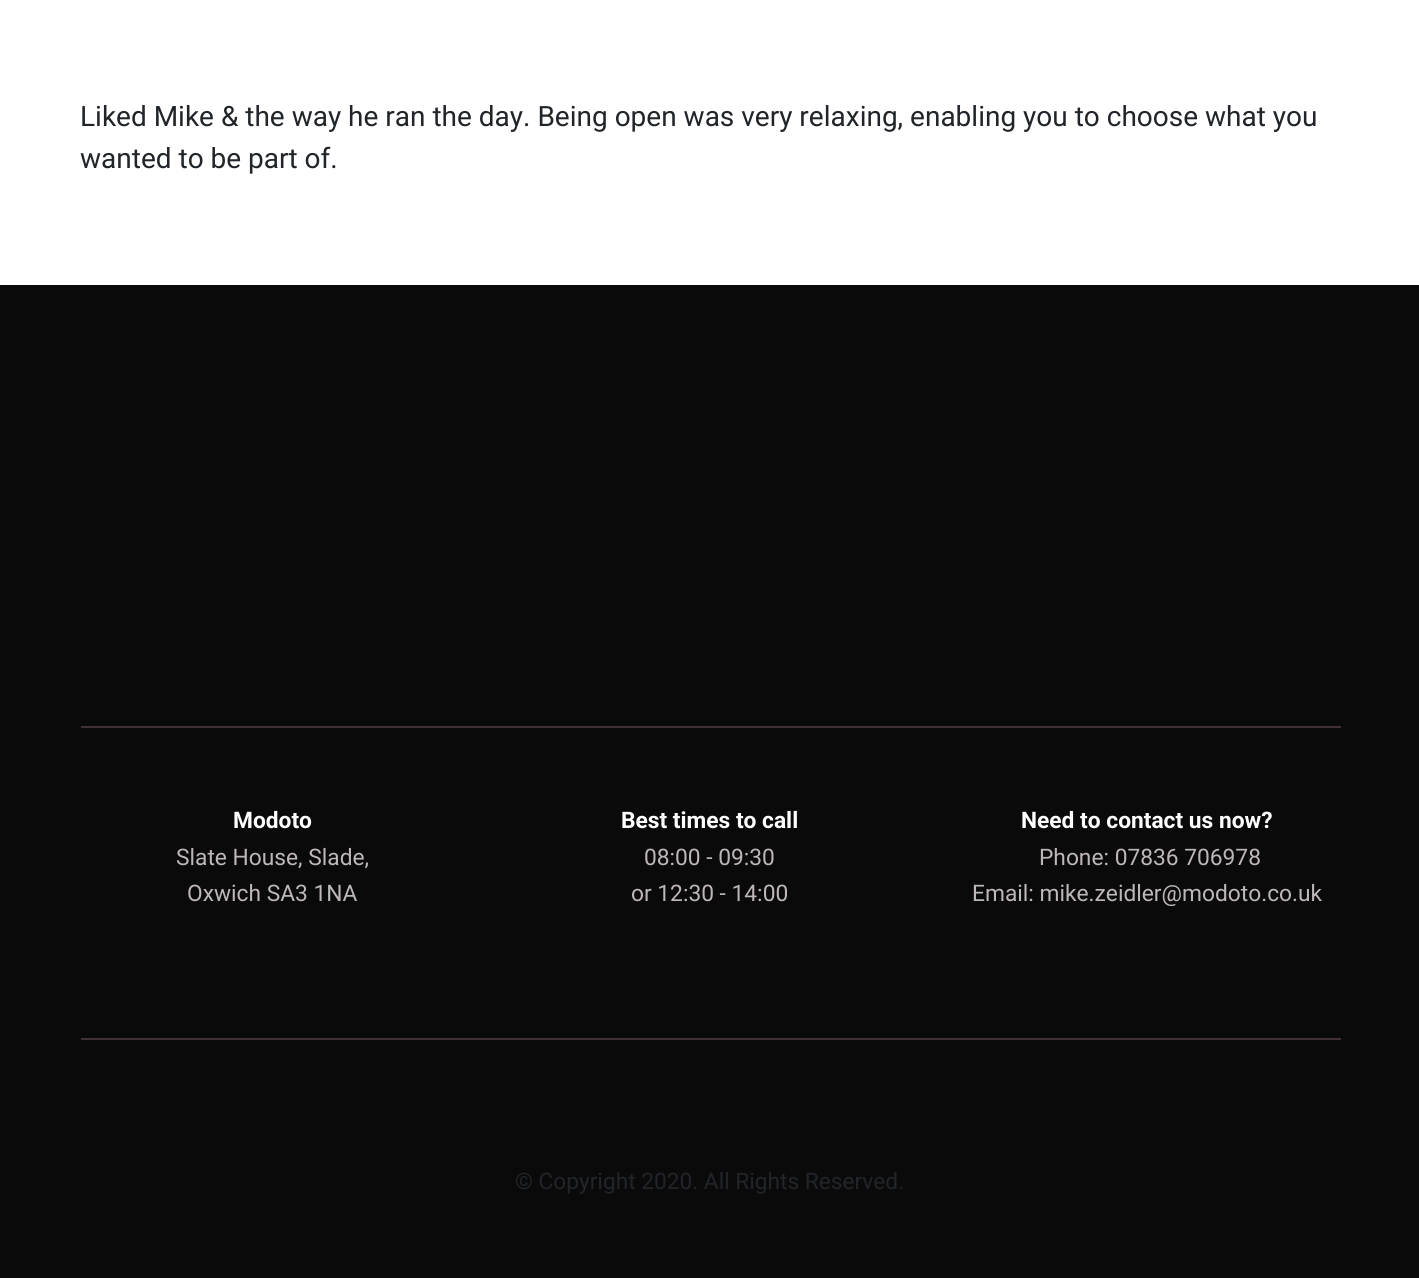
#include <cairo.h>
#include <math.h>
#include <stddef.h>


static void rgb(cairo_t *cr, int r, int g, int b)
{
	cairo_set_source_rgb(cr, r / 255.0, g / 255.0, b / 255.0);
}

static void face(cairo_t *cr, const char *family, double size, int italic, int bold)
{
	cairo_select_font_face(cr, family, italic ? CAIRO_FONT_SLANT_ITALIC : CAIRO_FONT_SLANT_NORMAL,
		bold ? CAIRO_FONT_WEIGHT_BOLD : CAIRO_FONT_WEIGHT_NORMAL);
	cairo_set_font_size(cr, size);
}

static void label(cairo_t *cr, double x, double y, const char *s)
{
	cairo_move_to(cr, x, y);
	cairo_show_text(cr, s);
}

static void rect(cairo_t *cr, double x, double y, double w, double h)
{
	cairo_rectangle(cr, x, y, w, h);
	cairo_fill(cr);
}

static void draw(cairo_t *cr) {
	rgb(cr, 255, 255, 255);
	cairo_paint(cr);
	face(cr, "Roboto", 28, 0, 0);
	rgb(cr, 33, 37, 41);
	label(cr, 80, 126, "Liked Mike & the way he ran the day. Being open was very relaxing, enabling you to choose what you");
	label(cr, 80, 168, "wanted to be part of.");
	rgb(cr, 10, 10, 10);
	rect(cr, 0, 285, 1419, 993);
	rgb(cr, 63, 48, 53);
	rect(cr, 81, 726, 1260, 2);
	face(cr, "Roboto", 22.75, 0, 1);
	rgb(cr, 255, 255, 255);
	label(cr, 233, 828, "Modoto");
	face(cr, "Roboto", 22.75, 0, 0);
	rgb(cr, 190, 183, 185);
	label(cr, 176, 865, "Slate House, Slade,");
	label(cr, 187, 901, "Oxwich SA3 1NA");
	face(cr, "Roboto", 22.75, 0, 1);
	rgb(cr, 255, 255, 255);
	label(cr, 621, 828, "Best times to call");
	face(cr, "Roboto", 22.75, 0, 0);
	rgb(cr, 190, 183, 185);
	label(cr, 644, 865, "08:00 - 09:30");
	label(cr, 631, 901, "or 12:30 - 14:00");
	face(cr, "Roboto", 22.75, 0, 1);
	rgb(cr, 255, 255, 255);
	label(cr, 1021, 828, "Need to contact us now?");
	face(cr, "Roboto", 22.75, 0, 0);
	rgb(cr, 190, 183, 185);
	label(cr, 1039, 865, "Phone: 07836 706978");
	label(cr, 972, 901, "Email: mike.zeidler@modoto.co.uk");
	rgb(cr, 63, 48, 53);
	rect(cr, 81, 1038, 1260, 2);
	face(cr, "Roboto", 22.7, 0, 0);
	rgb(cr, 33, 37, 41);
	label(cr, 515, 1189, "© Copyright 2020. All Rights Reserved.");
}

int main(void) {
	cairo_surface_t *surface = cairo_image_surface_create(CAIRO_FORMAT_RGB24, 1419, 1278);
	cairo_t *cr = cairo_create(surface);
	cairo_font_options_t *options = cairo_font_options_create();
	cairo_font_options_set_hint_metrics(options, CAIRO_HINT_METRICS_OFF);
	cairo_font_options_set_hint_style(options, CAIRO_HINT_STYLE_NONE);
	cairo_set_font_options(cr, options);
	cairo_set_miter_limit(cr, 4);
	draw(cr);
	cairo_surface_write_to_png(surface, "render.png");
	cairo_font_options_destroy(options);
	cairo_destroy(cr);
	cairo_surface_destroy(surface);
	return 0;
}
